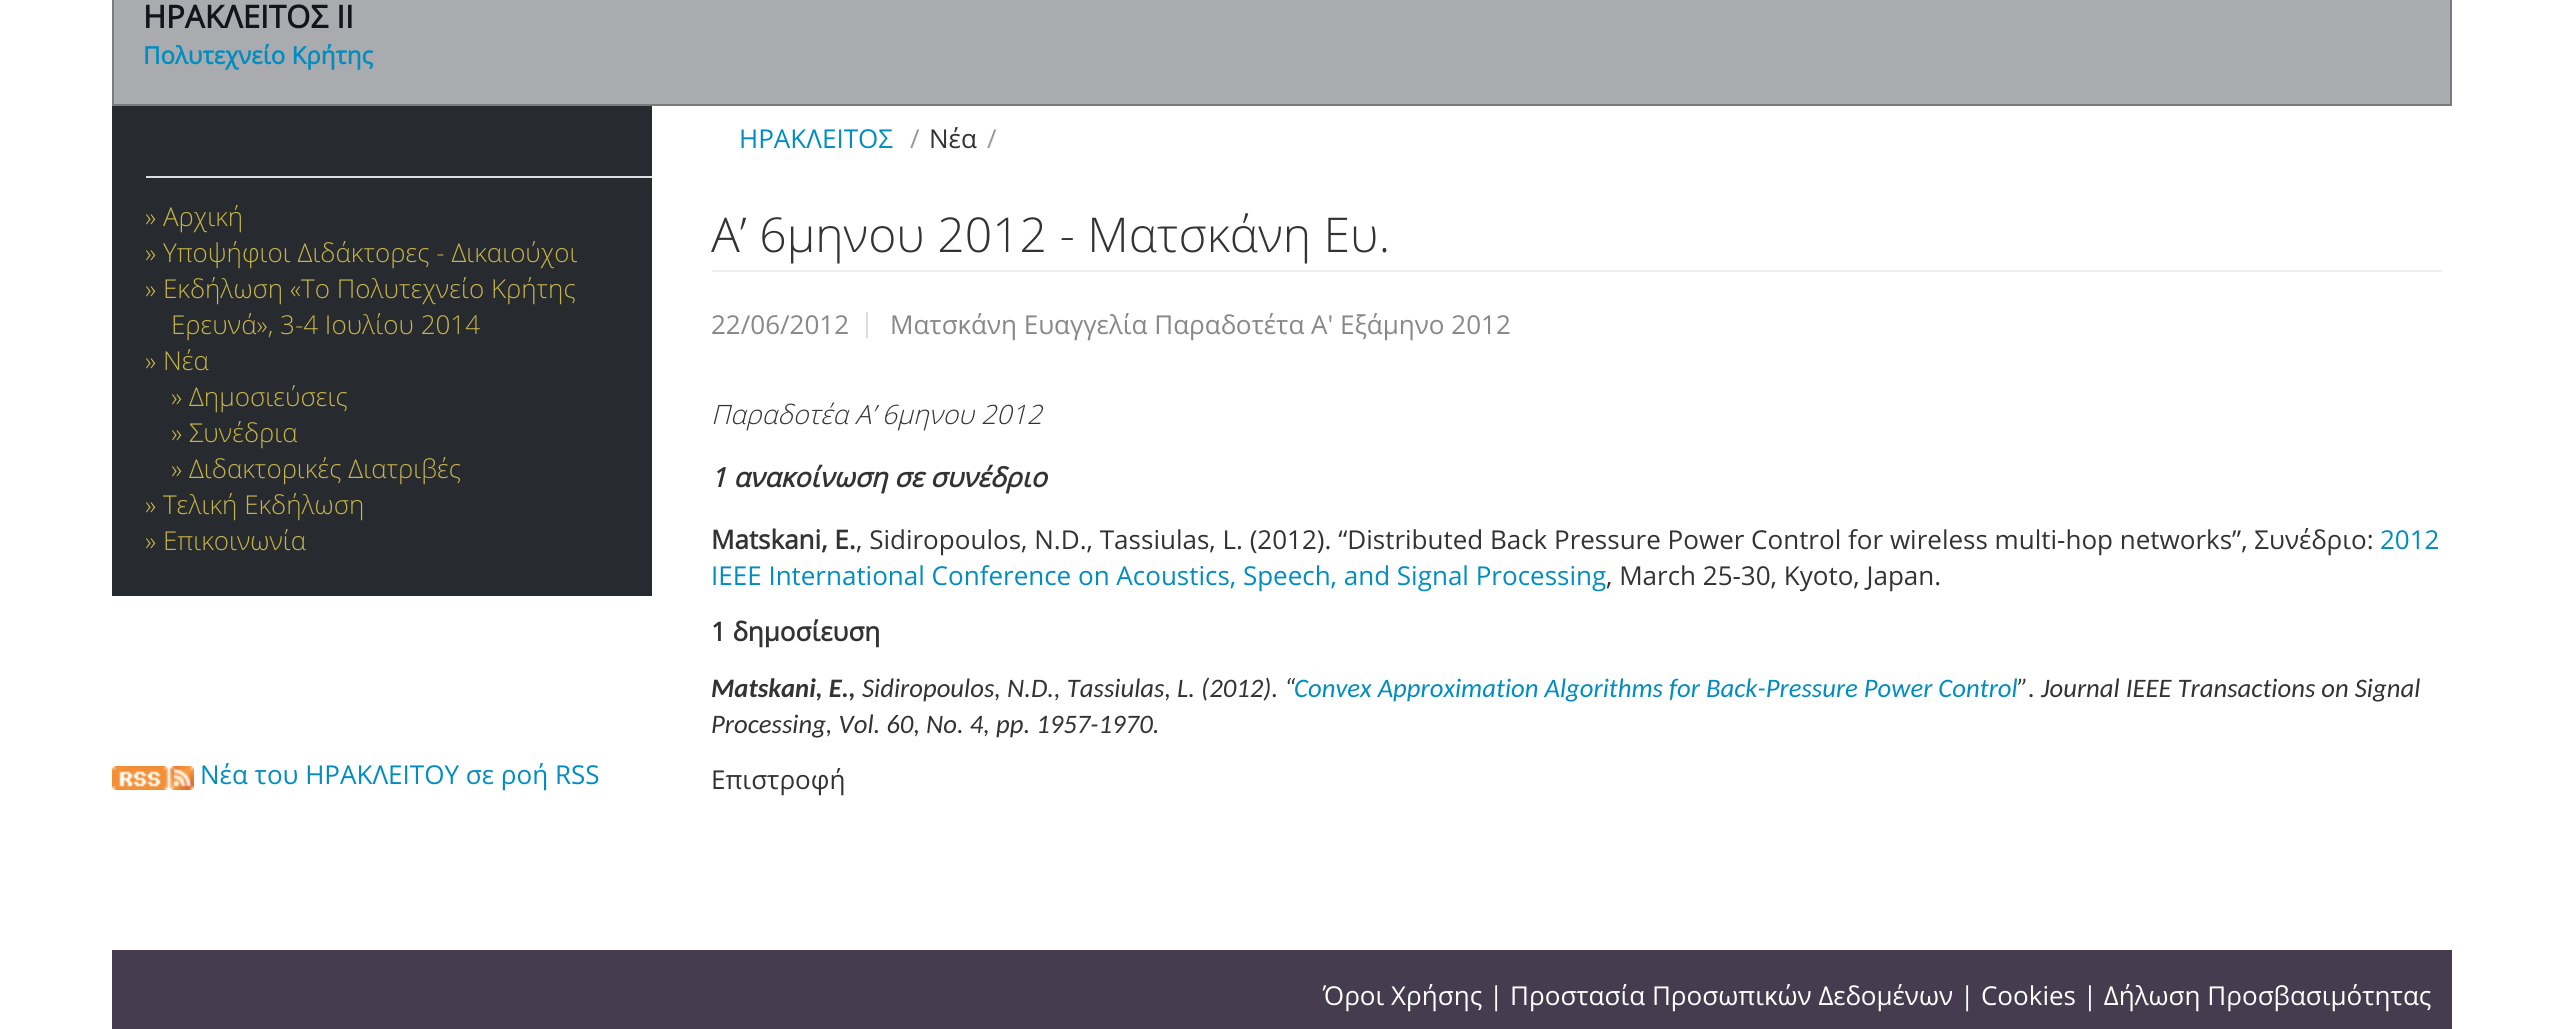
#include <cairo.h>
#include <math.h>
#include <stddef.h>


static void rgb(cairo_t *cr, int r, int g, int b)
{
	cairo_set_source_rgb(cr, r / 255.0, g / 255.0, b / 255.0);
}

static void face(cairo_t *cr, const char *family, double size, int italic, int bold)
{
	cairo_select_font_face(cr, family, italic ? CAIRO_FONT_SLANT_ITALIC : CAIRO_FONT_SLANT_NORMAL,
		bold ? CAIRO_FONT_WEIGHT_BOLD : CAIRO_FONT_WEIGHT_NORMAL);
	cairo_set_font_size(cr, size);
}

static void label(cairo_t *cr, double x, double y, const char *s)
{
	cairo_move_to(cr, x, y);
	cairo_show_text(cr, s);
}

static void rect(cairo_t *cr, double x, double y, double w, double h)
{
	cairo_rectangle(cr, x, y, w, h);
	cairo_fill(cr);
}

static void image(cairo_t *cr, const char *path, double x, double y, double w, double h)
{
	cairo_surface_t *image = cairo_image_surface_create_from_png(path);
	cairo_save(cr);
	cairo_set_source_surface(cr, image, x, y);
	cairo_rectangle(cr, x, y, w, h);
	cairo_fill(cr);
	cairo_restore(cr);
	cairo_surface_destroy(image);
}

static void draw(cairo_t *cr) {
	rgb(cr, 255, 255, 255);
	cairo_paint(cr);
	rgb(cr, 169, 171, 174);
	cairo_rectangle(cr, 113, -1, 2338, 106);
	cairo_fill_preserve(cr);
	rgb(cr, 121, 123, 125);
	cairo_stroke(cr);
	face(cr, "Open Sans", 31.25, 0, 1);
	rgb(cr, 17, 21, 28);
	label(cr, 143, 28, "ΗΡΑΚΛΕΙΤΟΣ ΙΙ");
	face(cr, "Open Sans", 24, 0, 1);
	rgb(cr, 2, 141, 192);
	label(cr, 143, 64, "Πολυτεχνείο Κρήτης");
	rgb(cr, 39, 42, 47);
	rect(cr, 112, 106, 540, 490);
	rgb(cr, 219, 223, 226);
	rect(cr, 146, 176, 506, 2);
	face(cr, "Open Sans Light", 26, 0, 0);
	rgb(cr, 199, 181, 71);
	label(cr, 145, 226, "» Αρχική");
	label(cr, 145, 262, "» Υποψήφιοι Διδάκτορες - Δικαιούχοι");
	label(cr, 145, 298, "» Εκδήλωση «Το Πολυτεχνείο Κρήτης");
	label(cr, 171, 334, "Ερευνά», 3-4 Ιουλίου 2014");
	label(cr, 145, 370, "» Νέα");
	label(cr, 171, 406, "» Δημοσιεύσεις");
	label(cr, 171, 442, "» Συνέδρια");
	label(cr, 171, 478, "» Διδακτορικές Διατριβές");
	label(cr, 145, 514, "» Τελική Εκδήλωση");
	label(cr, 145, 550, "» Επικοινωνία");
	image(cr, "image0.png", 112, 766, 82, 24);
	face(cr, "Open Sans", 26, 0, 0);
	rgb(cr, 2, 141, 192);
	label(cr, 200, 784, "Νέα του ΗΡΑΚΛΕΙΤΟΥ σε ροή RSS");
	label(cr, 739, 148, "ΗΡΑΚΛΕΙΤΟΣ");
	rgb(cr, 153, 153, 153);
	label(cr, 910, 148, "/");
	rgb(cr, 51, 51, 51);
	label(cr, 929, 148, "Νέα");
	rgb(cr, 153, 153, 153);
	label(cr, 987, 148, "/");
	face(cr, "Open Sans Light", 48, 0, 0);
	rgb(cr, 51, 51, 51);
	label(cr, 711, 252, "Α’ 6μηνου 2012 - Ματσκάνη Ευ.");
	rgb(cr, 238, 238, 238);
	rect(cr, 712, 270, 1730, 2);
	rgb(cr, 221, 221, 221);
	rect(cr, 866, 312, 2, 26);
	face(cr, "Open Sans", 26, 0, 0);
	rgb(cr, 136, 136, 136);
	label(cr, 711, 334, "22/06/2012");
	label(cr, 890, 334, "Ματσκάνη Ευαγγελία Παραδοτέτα Α' Εξάμηνο 2012");
	face(cr, "Open Sans Light", 26.7, 1, 0);
	rgb(cr, 51, 51, 51);
	label(cr, 711, 424, "Παραδοτέα Α’ 6μηνου 2012");
	face(cr, "Open Sans", 26.7, 1, 1);
	label(cr, 711, 487, "1 ανακοίνωση σε συνέδριο");
	face(cr, "Open Sans", 26, 0, 1);
	label(cr, 711, 549, "Matskani, E.");
	face(cr, "Open Sans", 26, 0, 0);
	label(cr, 856, 549, ", Sidiropoulos, N.D., Tassiulas, L. (2012). “Distributed Back Pressure Power Control for wireless multi-hop networks”, Συνέδριο:");
	rgb(cr, 2, 141, 192);
	label(cr, 2380, 549, "2012");
	label(cr, 711, 585, "IEEE International Conference on Acoustics, Speech, and Signal Processing");
	rgb(cr, 51, 51, 51);
	label(cr, 1606, 585, ", March 25-30, Kyoto, Japan.");
	face(cr, "Open Sans", 26, 0, 1);
	label(cr, 711, 641, "1 δημοσίευση");
	face(cr, "Carlito", 26.7, 1, 1);
	label(cr, 711, 697, "Matskani, E.,");
	face(cr, "Carlito", 26.7, 1, 0);
	label(cr, 862, 697, "Sidiropoulos, N.D., Tassiulas, L. (2012). “");
	rgb(cr, 2, 141, 192);
	label(cr, 1294, 697, "Convex Approximation Algorithms for Back-Pressure Power Control");
	rgb(cr, 51, 51, 51);
	label(cr, 2017, 697, "”. Journal IEEE Transactions on Signal");
	label(cr, 711, 733, "Processing, Vol. 60, No. 4, pp. 1957-1970.");
	face(cr, "Open Sans", 26, 0, 0);
	label(cr, 711, 789, "Επιστροφή");
	rgb(cr, 69, 60, 80);
	rect(cr, 112, 950, 2340, 79);
	rgb(cr, 255, 255, 255);
	label(cr, 1323, 1005, "Όροι Χρήσης | Προστασία Προσωπικών Δεδομένων | Cookies | Δήλωση Προσβασιμότητας");
}

int main(void) {
	cairo_surface_t *surface = cairo_image_surface_create(CAIRO_FORMAT_RGB24, 2562, 1029);
	cairo_t *cr = cairo_create(surface);
	cairo_font_options_t *options = cairo_font_options_create();
	cairo_font_options_set_hint_metrics(options, CAIRO_HINT_METRICS_OFF);
	cairo_font_options_set_hint_style(options, CAIRO_HINT_STYLE_NONE);
	cairo_set_font_options(cr, options);
	cairo_set_miter_limit(cr, 4);
	draw(cr);
	cairo_surface_write_to_png(surface, "render.png");
	cairo_font_options_destroy(options);
	cairo_destroy(cr);
	cairo_surface_destroy(surface);
	return 0;
}
